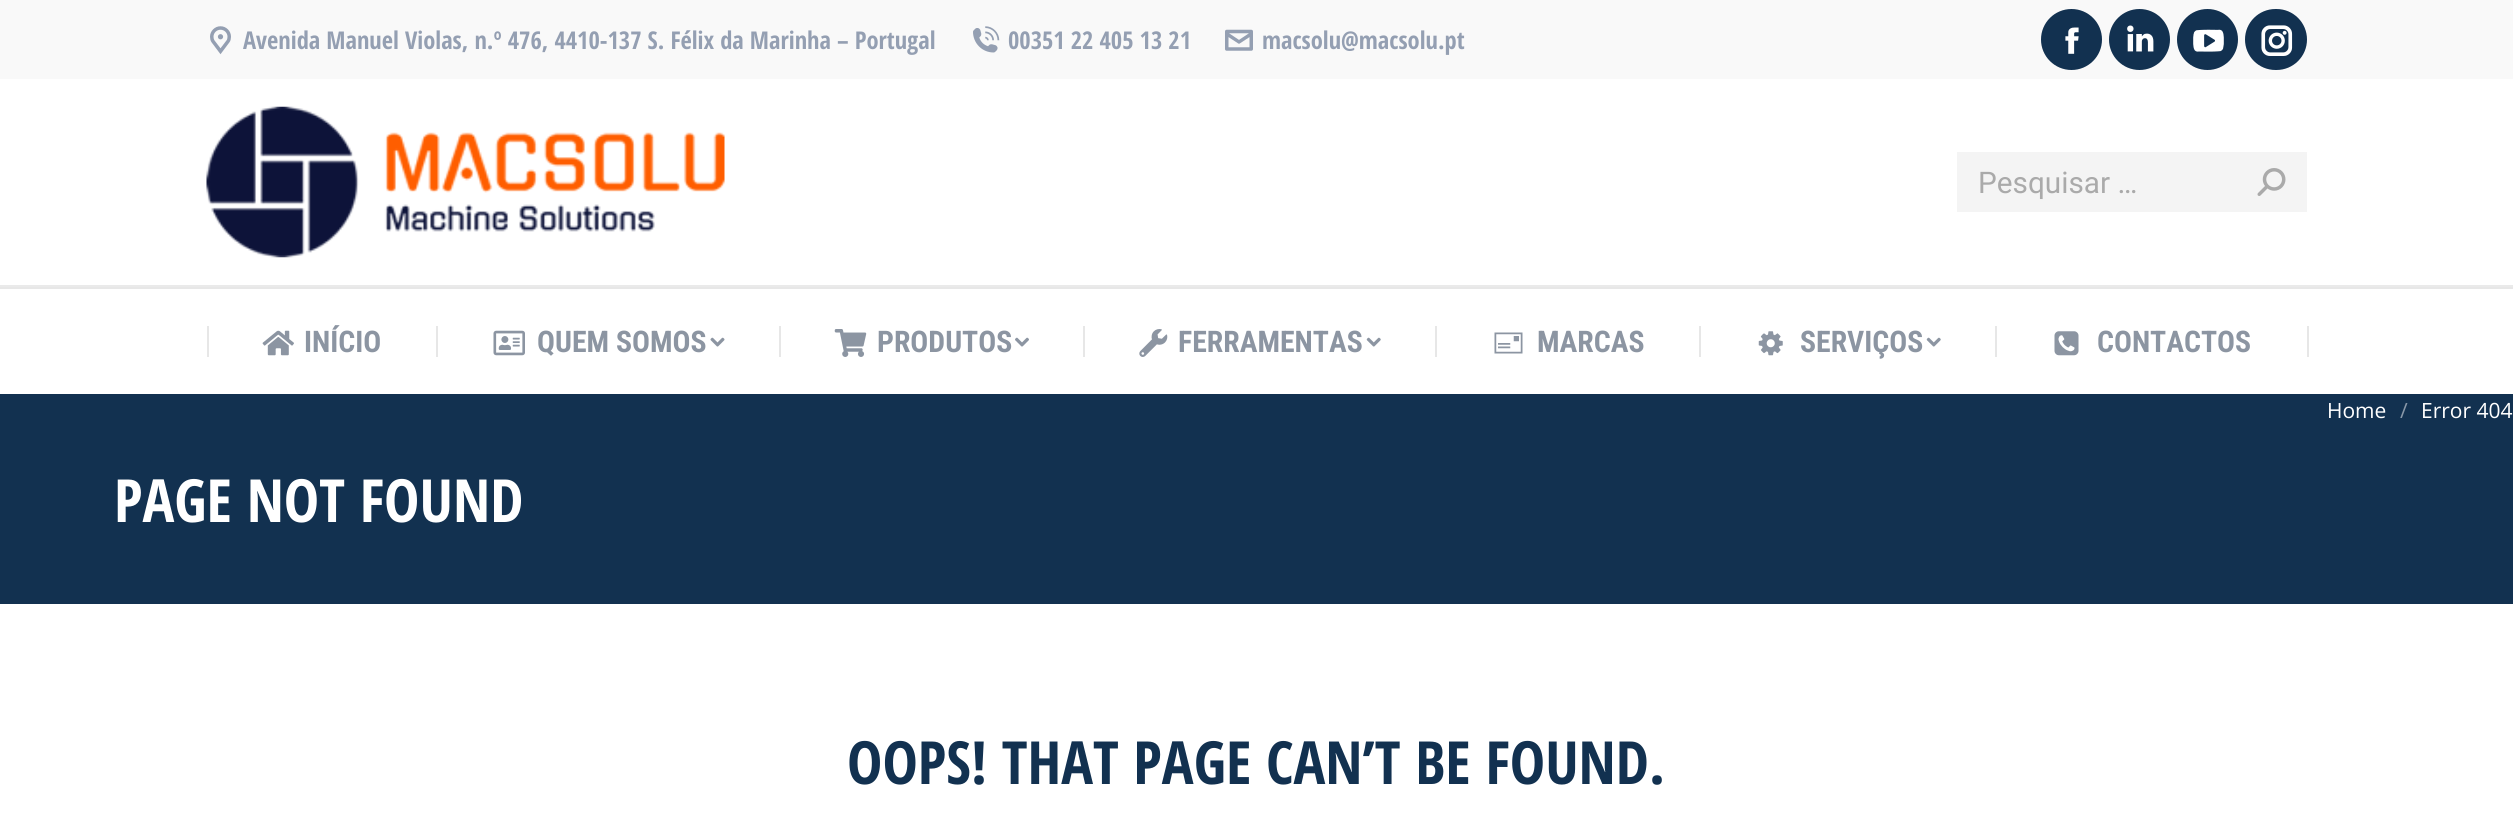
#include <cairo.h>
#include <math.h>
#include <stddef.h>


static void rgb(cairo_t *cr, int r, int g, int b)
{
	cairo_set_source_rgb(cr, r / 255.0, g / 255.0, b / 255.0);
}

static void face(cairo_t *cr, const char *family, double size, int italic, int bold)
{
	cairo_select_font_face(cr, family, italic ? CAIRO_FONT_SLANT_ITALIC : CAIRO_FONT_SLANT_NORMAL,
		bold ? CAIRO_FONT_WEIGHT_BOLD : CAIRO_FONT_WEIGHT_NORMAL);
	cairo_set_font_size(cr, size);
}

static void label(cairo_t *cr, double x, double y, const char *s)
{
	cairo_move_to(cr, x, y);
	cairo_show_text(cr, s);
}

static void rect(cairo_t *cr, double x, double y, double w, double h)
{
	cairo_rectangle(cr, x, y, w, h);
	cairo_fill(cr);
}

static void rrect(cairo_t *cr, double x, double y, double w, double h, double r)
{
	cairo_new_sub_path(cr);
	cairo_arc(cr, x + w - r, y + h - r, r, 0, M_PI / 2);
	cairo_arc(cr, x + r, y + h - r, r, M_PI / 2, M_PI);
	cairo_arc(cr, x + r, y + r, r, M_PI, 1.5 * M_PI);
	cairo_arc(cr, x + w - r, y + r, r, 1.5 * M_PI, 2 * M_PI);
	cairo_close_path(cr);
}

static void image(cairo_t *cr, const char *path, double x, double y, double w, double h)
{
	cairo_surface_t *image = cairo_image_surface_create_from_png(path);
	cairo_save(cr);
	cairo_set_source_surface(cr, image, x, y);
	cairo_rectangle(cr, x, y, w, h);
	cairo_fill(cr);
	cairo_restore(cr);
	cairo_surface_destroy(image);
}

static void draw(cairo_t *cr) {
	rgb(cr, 255, 255, 255);
	cairo_paint(cr);
	rgb(cr, 249, 249, 249);
	rect(cr, 0, 0, 2513, 79);
	image(cr, "image0.png", 210, 26, 21, 29);
	face(cr, "Open Sans Condensed", 24.5, 0, 1);
	rgb(cr, 148, 159, 178);
	label(cr, 243, 49, "Avenida Manuel Violas, n.º 476, 4410-137 S. Félix da Marinha – Portugal");
	image(cr, "image1.png", 973, 26, 27, 27);
	label(cr, 1008, 49, "00351 22 405 13 21");
	image(cr, "image2.png", 1225, 29, 28, 22);
	label(cr, 1262, 49, "macsolu@macsolu.pt");
	rgb(cr, 18, 49, 80);
	cairo_new_path(cr);
	cairo_arc(cr, 2071.5, 39.5, 30.5, 0, 2 * M_PI);
	cairo_fill(cr);
	image(cr, "image3.png", 2065, 27, 14, 27);
	cairo_arc(cr, 2139.5, 39.5, 30.5, 0, 2 * M_PI);
	cairo_fill(cr);
	image(cr, "image4.png", 2127, 25, 27, 27);
	cairo_arc(cr, 2207.5, 39.5, 30.5, 0, 2 * M_PI);
	cairo_fill(cr);
	image(cr, "image5.png", 2193, 29, 31, 23);
	rrect(cr, 2245, 9, 62, 61, 30.5);
	cairo_fill(cr);
	image(cr, "image6.png", 2261, 25, 32, 31);
	image(cr, "image7.png", 206, 106, 519, 152);
	rgb(cr, 244, 244, 244);
	rect(cr, 1957, 152, 350, 60);
	face(cr, "Roboto", 29.75, 0, 0);
	rgb(cr, 170, 170, 170);
	label(cr, 1978, 193, "Pesquisar …");
	image(cr, "image8.png", 2257, 168, 29, 28);
	rgb(cr, 231, 231, 231);
	rect(cr, 0, 287, 2513, 2);
	rgb(cr, 234, 234, 234);
	rect(cr, 0, 285, 2513, 2);
	rgb(cr, 231, 231, 231);
	rect(cr, 207, 326, 2, 31);
	image(cr, "image9.png", 262, 330, 32, 26);
	face(cr, "Roboto Condensed", 29.75, 0, 1);
	rgb(cr, 140, 149, 162);
	label(cr, 304, 352, "INÍCIO");
	rgb(cr, 231, 231, 231);
	rect(cr, 436, 326, 2, 31);
	image(cr, "image10.png", 493, 330, 32, 26);
	rgb(cr, 140, 149, 162);
	label(cr, 537, 352, "QUEM SOMOS");
	image(cr, "image11.png", 710, 337, 15, 10);
	rgb(cr, 231, 231, 231);
	rect(cr, 779, 326, 2, 31);
	image(cr, "image12.png", 834, 329, 33, 28);
	rgb(cr, 140, 149, 162);
	label(cr, 877, 352, "PRODUTOS");
	image(cr, "image13.png", 1015, 337, 14, 10);
	rgb(cr, 231, 231, 231);
	rect(cr, 1083, 326, 2, 31);
	image(cr, "image14.png", 1139, 329, 29, 28);
	rgb(cr, 140, 149, 162);
	label(cr, 1178, 352, "FERRAMENTAS");
	image(cr, "image15.png", 1366, 337, 15, 10);
	rgb(cr, 231, 231, 231);
	rect(cr, 1435, 326, 2, 31);
	image(cr, "image16.png", 1494, 332, 29, 22);
	rgb(cr, 140, 149, 162);
	label(cr, 1537, 352, "MARCAS");
	rgb(cr, 231, 231, 231);
	rect(cr, 1699, 326, 2, 31);
	image(cr, "image17.png", 1758, 331, 25, 25);
	rgb(cr, 140, 149, 162);
	label(cr, 1800, 352, "SERVIÇOS");
	image(cr, "image15.png", 1926, 337, 15, 10);
	rgb(cr, 231, 231, 231);
	rect(cr, 1995, 326, 2, 31);
	image(cr, "image18.png", 2054, 331, 25, 25);
	rgb(cr, 140, 149, 162);
	label(cr, 2097, 352, "CONTACTOS");
	rgb(cr, 231, 231, 231);
	rect(cr, 2307, 326, 2, 31);
	rgb(cr, 18, 49, 80);
	rect(cr, 0, 394, 2513, 210);
	face(cr, "Open Sans", 21, 0, 0);
	rgb(cr, 255, 255, 255);
	label(cr, 2327, 418, "Home");
	rgb(cr, 137, 152, 168);
	label(cr, 2400, 418, "/");
	rgb(cr, 255, 255, 255);
	label(cr, 2421, 418, "Error 404");
	face(cr, "Open Sans Condensed", 59.5, 0, 1);
	label(cr, 114, 522, "PAGE NOT FOUND");
	rgb(cr, 18, 49, 80);
	label(cr, 847, 784, "OOPS! THAT PAGE CAN’T BE FOUND.");
}

int main(void) {
	cairo_surface_t *surface = cairo_image_surface_create(CAIRO_FORMAT_RGB24, 2513, 831);
	cairo_t *cr = cairo_create(surface);
	cairo_font_options_t *options = cairo_font_options_create();
	cairo_font_options_set_hint_metrics(options, CAIRO_HINT_METRICS_OFF);
	cairo_font_options_set_hint_style(options, CAIRO_HINT_STYLE_NONE);
	cairo_set_font_options(cr, options);
	cairo_set_miter_limit(cr, 4);
	draw(cr);
	cairo_surface_write_to_png(surface, "render.png");
	cairo_font_options_destroy(options);
	cairo_destroy(cr);
	cairo_surface_destroy(surface);
	return 0;
}
